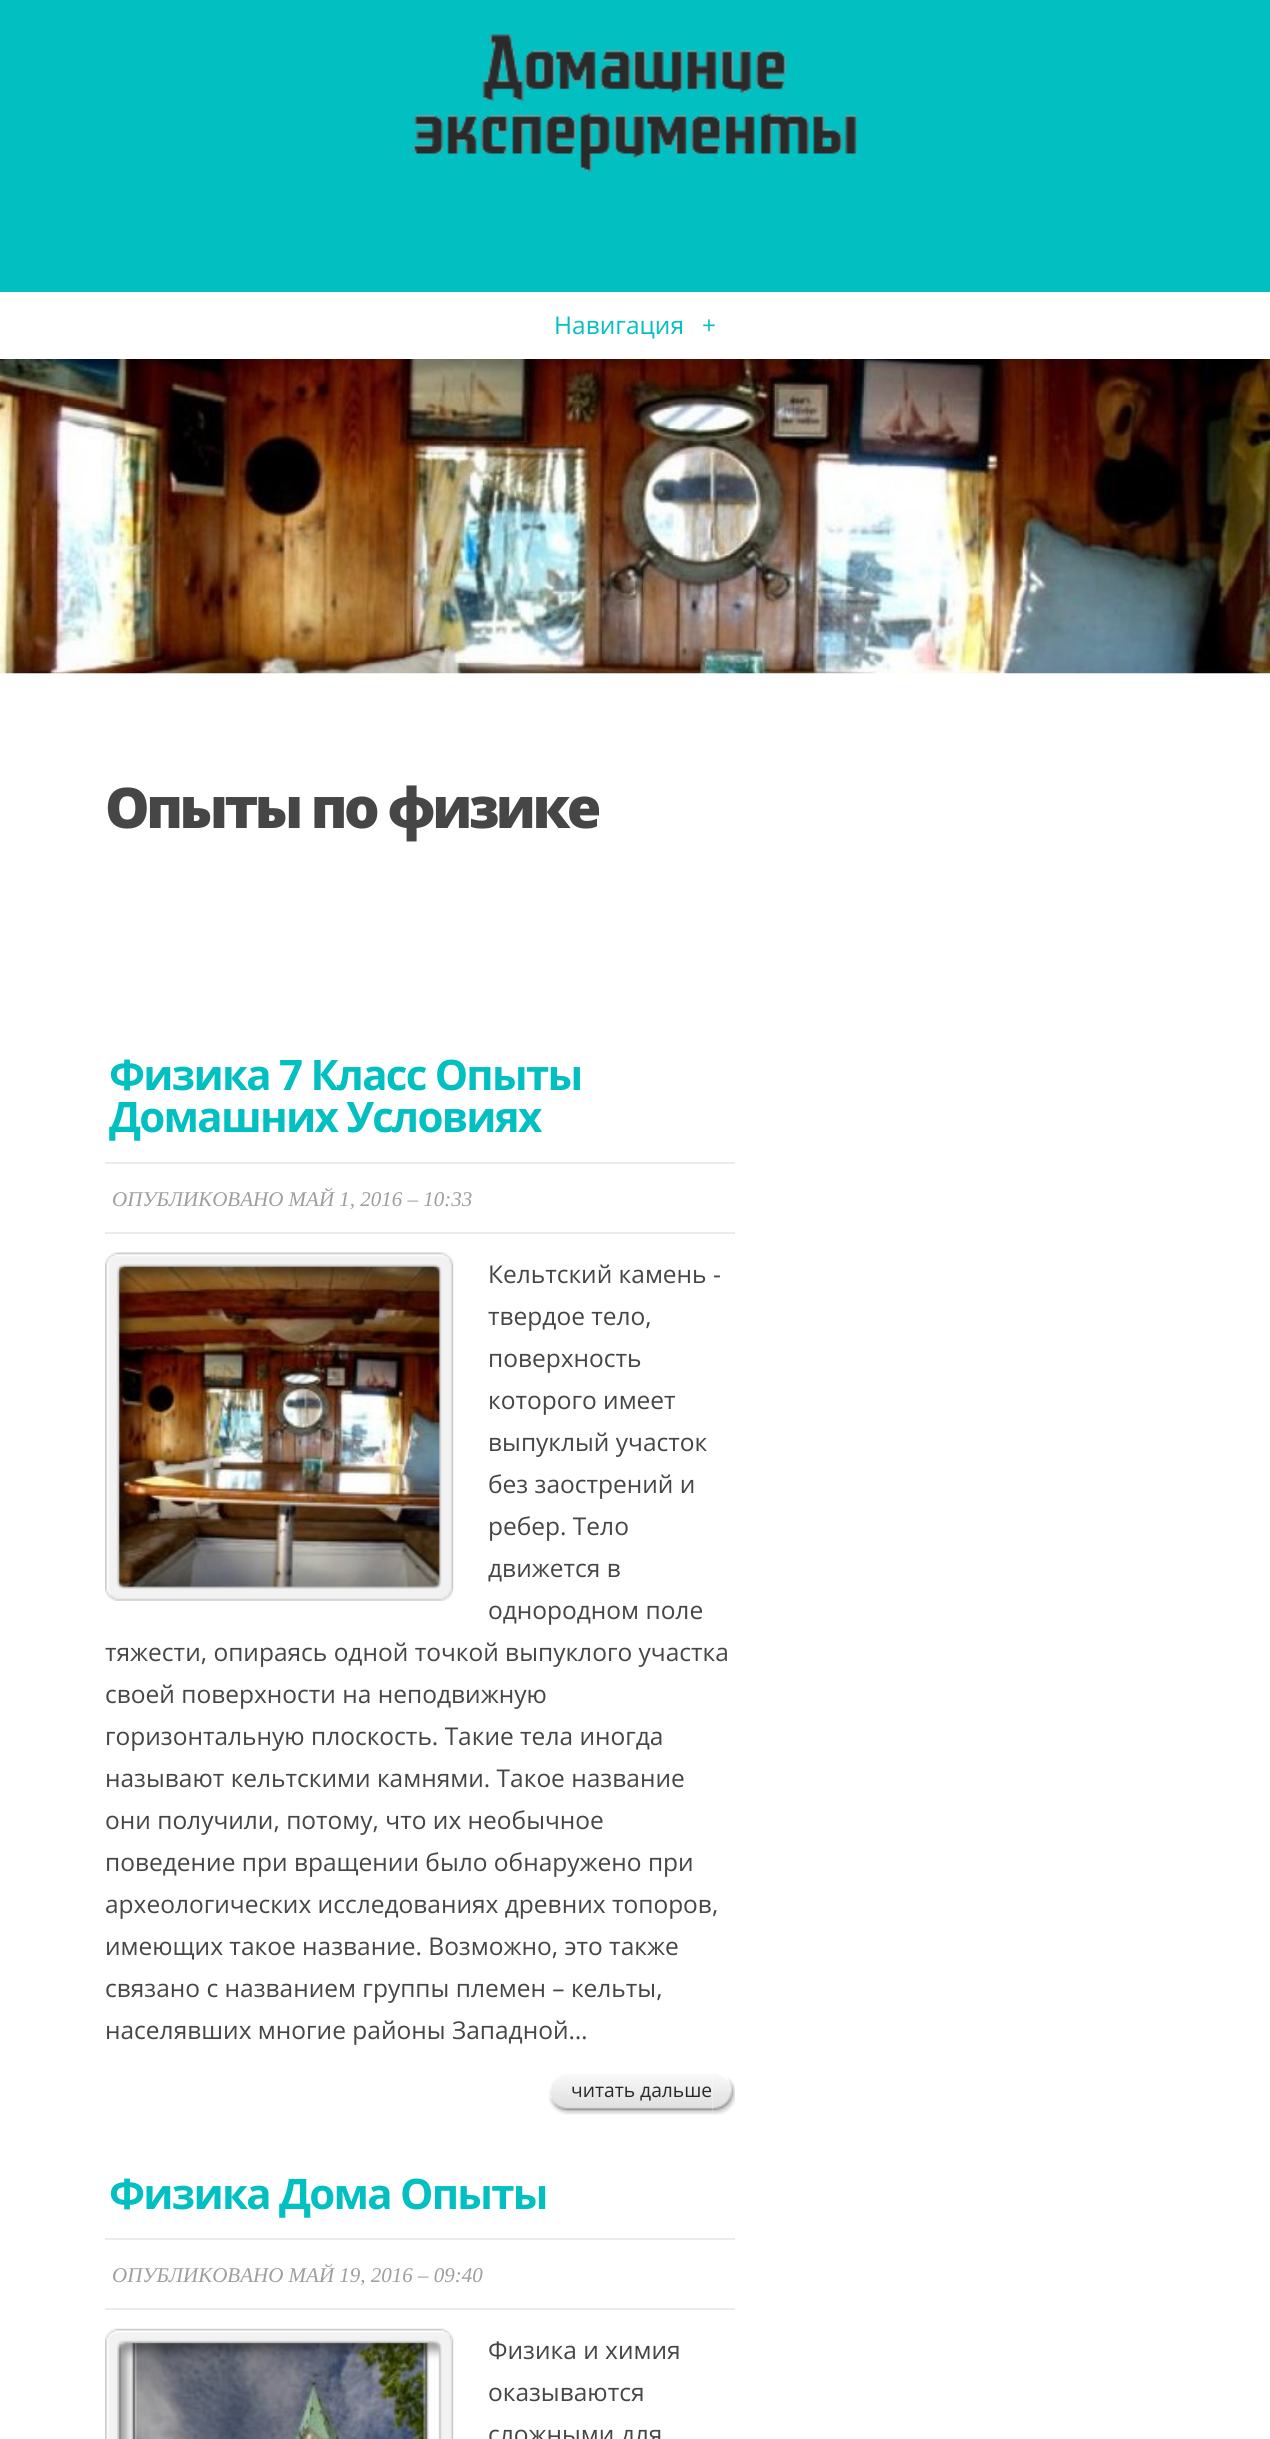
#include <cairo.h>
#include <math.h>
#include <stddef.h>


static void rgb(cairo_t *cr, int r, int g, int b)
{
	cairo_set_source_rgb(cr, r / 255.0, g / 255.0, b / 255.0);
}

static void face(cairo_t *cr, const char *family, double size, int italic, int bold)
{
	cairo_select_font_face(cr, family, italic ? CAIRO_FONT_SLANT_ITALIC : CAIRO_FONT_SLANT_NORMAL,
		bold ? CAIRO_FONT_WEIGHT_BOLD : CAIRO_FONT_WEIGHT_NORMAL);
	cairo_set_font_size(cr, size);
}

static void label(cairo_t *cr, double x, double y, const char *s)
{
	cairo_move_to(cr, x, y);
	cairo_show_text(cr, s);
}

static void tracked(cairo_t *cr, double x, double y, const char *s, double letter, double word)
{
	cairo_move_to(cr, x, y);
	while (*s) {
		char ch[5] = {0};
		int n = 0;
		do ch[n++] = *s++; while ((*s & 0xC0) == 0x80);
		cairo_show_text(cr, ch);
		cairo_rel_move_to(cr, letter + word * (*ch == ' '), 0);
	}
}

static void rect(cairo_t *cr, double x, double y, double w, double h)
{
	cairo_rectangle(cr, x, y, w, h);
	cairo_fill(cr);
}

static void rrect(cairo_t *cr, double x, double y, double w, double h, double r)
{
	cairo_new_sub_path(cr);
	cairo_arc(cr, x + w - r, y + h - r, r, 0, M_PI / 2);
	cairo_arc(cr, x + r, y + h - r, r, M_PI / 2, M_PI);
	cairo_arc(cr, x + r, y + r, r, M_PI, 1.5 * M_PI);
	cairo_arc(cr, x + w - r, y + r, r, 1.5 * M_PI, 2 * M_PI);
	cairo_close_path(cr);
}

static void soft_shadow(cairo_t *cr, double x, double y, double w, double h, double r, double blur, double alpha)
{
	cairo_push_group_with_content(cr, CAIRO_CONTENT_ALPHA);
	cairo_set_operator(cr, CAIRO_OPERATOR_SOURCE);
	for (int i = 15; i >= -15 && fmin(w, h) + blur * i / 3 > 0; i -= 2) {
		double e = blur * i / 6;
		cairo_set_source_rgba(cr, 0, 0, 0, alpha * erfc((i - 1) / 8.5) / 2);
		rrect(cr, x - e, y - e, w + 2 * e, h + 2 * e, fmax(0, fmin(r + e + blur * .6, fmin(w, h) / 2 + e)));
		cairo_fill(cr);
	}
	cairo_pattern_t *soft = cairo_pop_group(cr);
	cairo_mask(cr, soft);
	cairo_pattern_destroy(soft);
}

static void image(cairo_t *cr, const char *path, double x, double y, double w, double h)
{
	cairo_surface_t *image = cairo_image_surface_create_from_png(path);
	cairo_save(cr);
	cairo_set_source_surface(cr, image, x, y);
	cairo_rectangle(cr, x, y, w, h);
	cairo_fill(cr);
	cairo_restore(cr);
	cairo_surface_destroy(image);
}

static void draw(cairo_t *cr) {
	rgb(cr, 255, 255, 255);
	cairo_paint(cr);
	image(cr, "image1.png", 0, 359, 1270, 315);
	rgb(cr, 0, 0, 0);
	soft_shadow(cr, 0, -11, 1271, 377, 0, 3.5, 0.08);
	rgb(cr, 2, 191, 193);
	rect(cr, 0, 0, 1270, 292);
	image(cr, "image0.png", 412, 34, 445, 138);
	rgb(cr, 255, 255, 255);
	rect(cr, 0, 292, 1270, 67);
	face(cr, "Open Sans", 24.5, 0, 0);
	rgb(cr, 2, 191, 193);
	label(cr, 554, 334, "Навигация");
	label(cr, 702, 334, "+");
	face(cr, "Open Sans ExtraBold", 56, 0, 0);
	rgb(cr, 70, 70, 70);
	tracked(cr, 105, 828, "Опыты по физике", -3.5, 0);
	face(cr, "Open Sans", 42, 0, 1);
	rgb(cr, 2, 191, 193);
	tracked(cr, 109, 1090, "Физика 7 Класс Опыты", -1.75, 0);
	tracked(cr, 109, 1132, "Домашних Условиях", -1.75, 0);
	rgb(cr, 235, 235, 235);
	rect(cr, 105, 1162, 630, 2);
	rect(cr, 105, 1232, 630, 2);
	face(cr, "Liberation Serif", 21, 1, 0);
	rgb(cr, 158, 158, 158);
	label(cr, 112, 1206, "ОПУБЛИКОВАНО МАЙ 1, 2016 – 10:33");
	image(cr, "image3.png", 119, 1266, 321, 322);
	image(cr, "image2.png", 105, 1252, 349, 349);
	face(cr, "Open Sans", 24.5, 0, 0);
	rgb(cr, 70, 70, 70);
	label(cr, 488, 1283, "Кельтский камень -");
	label(cr, 488, 1325, "твердое тело,");
	label(cr, 488, 1367, "поверхность");
	label(cr, 488, 1409, "которого имеет");
	label(cr, 488, 1451, "выпуклый участок");
	label(cr, 488, 1493, "без заострений и");
	label(cr, 488, 1535, "ребер. Тело");
	label(cr, 488, 1577, "движется в");
	label(cr, 488, 1619, "однородном поле");
	label(cr, 105, 1661, "тяжести, опираясь одной точкой выпуклого участка");
	label(cr, 105, 1703, "своей поверхности на неподвижную");
	label(cr, 105, 1745, "горизонтальную плоскость. Такие тела иногда");
	label(cr, 105, 1787, "называют кельтскими камнями. Такое название");
	label(cr, 105, 1829, "они получили, потому, что их необычное");
	label(cr, 105, 1871, "поведение при вращении было обнаружено при");
	label(cr, 105, 1913, "археологических исследованиях древних топоров,");
	label(cr, 105, 1955, "имеющих такое название. Возможно, это также");
	label(cr, 105, 1997, "связано с названием группы племен – кельты,");
	label(cr, 105, 2039, "населявших многие районы Западной…");
	image(cr, "image4.png", 711, 2074, 24, 41);
	image(cr, "image5.png", 548, 2074, 165, 41);
	face(cr, "Open Sans", 19.25, 0, 0);
	rgb(cr, 40, 40, 40);
	label(cr, 571, 2097, "читать дальше");
	face(cr, "Open Sans", 42, 0, 1);
	rgb(cr, 2, 191, 193);
	tracked(cr, 109, 2209, "Физика Дома Опыты", -1.75, 0);
	rgb(cr, 235, 235, 235);
	rect(cr, 105, 2238, 630, 2);
	rect(cr, 105, 2308, 630, 2);
	face(cr, "Liberation Serif", 21, 1, 0);
	rgb(cr, 158, 158, 158);
	label(cr, 112, 2282, "ОПУБЛИКОВАНО МАЙ 19, 2016 – 09:40");
	image(cr, "image7.png", 119, 2342, 321, 97);
	image(cr, "image6.png", 105, 2328, 349, 111);
	face(cr, "Open Sans", 24.5, 0, 0);
	rgb(cr, 70, 70, 70);
	label(cr, 488, 2359, "Физика и химия");
	label(cr, 488, 2401, "оказываются");
	label(cr, 488, 2443, "сложными для");
}

int main(void) {
	cairo_surface_t *surface = cairo_image_surface_create(CAIRO_FORMAT_RGB24, 1270, 2439);
	cairo_t *cr = cairo_create(surface);
	cairo_font_options_t *options = cairo_font_options_create();
	cairo_font_options_set_hint_metrics(options, CAIRO_HINT_METRICS_OFF);
	cairo_font_options_set_hint_style(options, CAIRO_HINT_STYLE_NONE);
	cairo_set_font_options(cr, options);
	cairo_set_miter_limit(cr, 4);
	draw(cr);
	cairo_surface_write_to_png(surface, "render.png");
	cairo_font_options_destroy(options);
	cairo_destroy(cr);
	cairo_surface_destroy(surface);
	return 0;
}
